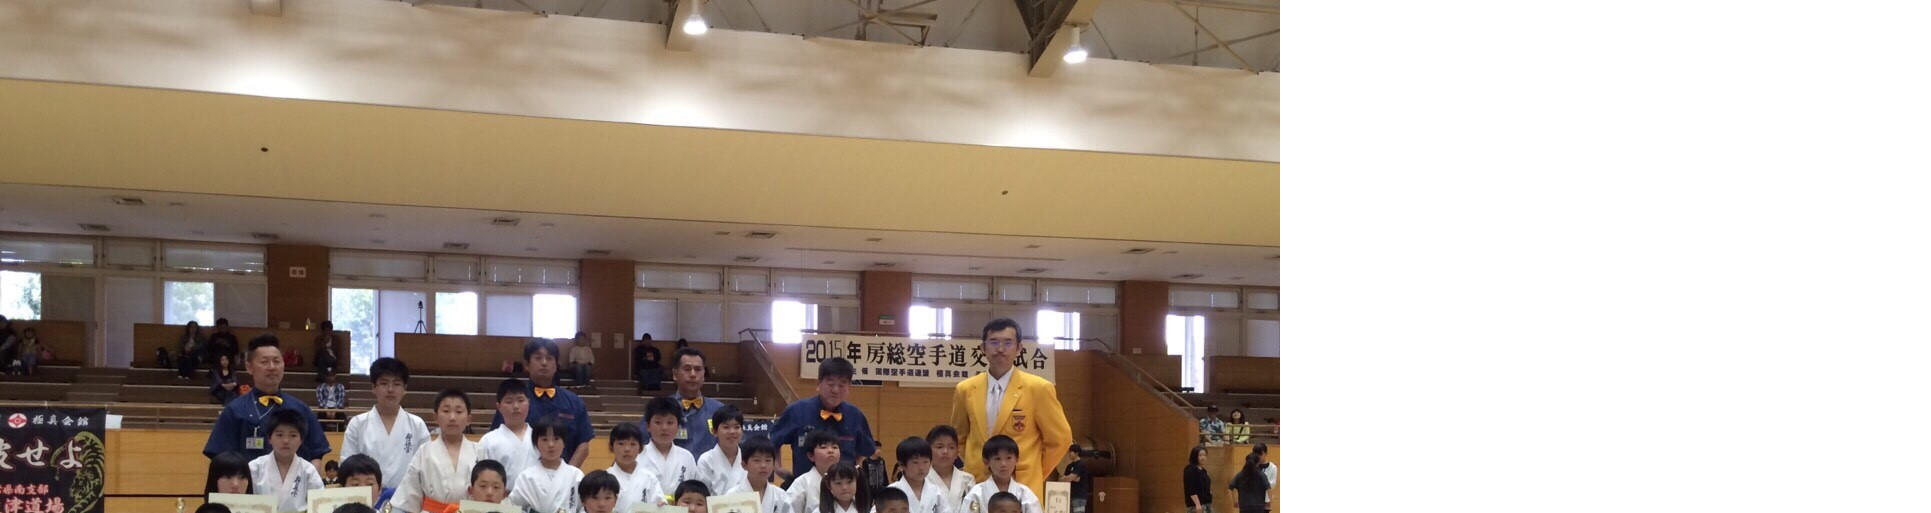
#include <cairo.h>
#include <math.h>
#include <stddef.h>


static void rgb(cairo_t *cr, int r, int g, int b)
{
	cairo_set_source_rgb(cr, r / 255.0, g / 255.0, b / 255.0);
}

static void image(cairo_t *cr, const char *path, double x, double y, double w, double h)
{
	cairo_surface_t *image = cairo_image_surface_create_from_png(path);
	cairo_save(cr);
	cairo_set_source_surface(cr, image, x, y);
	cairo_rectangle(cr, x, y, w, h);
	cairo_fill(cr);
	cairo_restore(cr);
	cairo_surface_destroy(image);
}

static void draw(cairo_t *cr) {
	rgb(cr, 255, 255, 255);
	cairo_paint(cr);
	image(cr, "image0.png", 0, 0, 1280, 513);
}

int main(void) {
	cairo_surface_t *surface = cairo_image_surface_create(CAIRO_FORMAT_RGB24, 1931, 513);
	cairo_t *cr = cairo_create(surface);
	cairo_font_options_t *options = cairo_font_options_create();
	cairo_font_options_set_hint_metrics(options, CAIRO_HINT_METRICS_OFF);
	cairo_font_options_set_hint_style(options, CAIRO_HINT_STYLE_NONE);
	cairo_set_font_options(cr, options);
	cairo_set_miter_limit(cr, 4);
	draw(cr);
	cairo_surface_write_to_png(surface, "render.png");
	cairo_font_options_destroy(options);
	cairo_destroy(cr);
	cairo_surface_destroy(surface);
	return 0;
}
